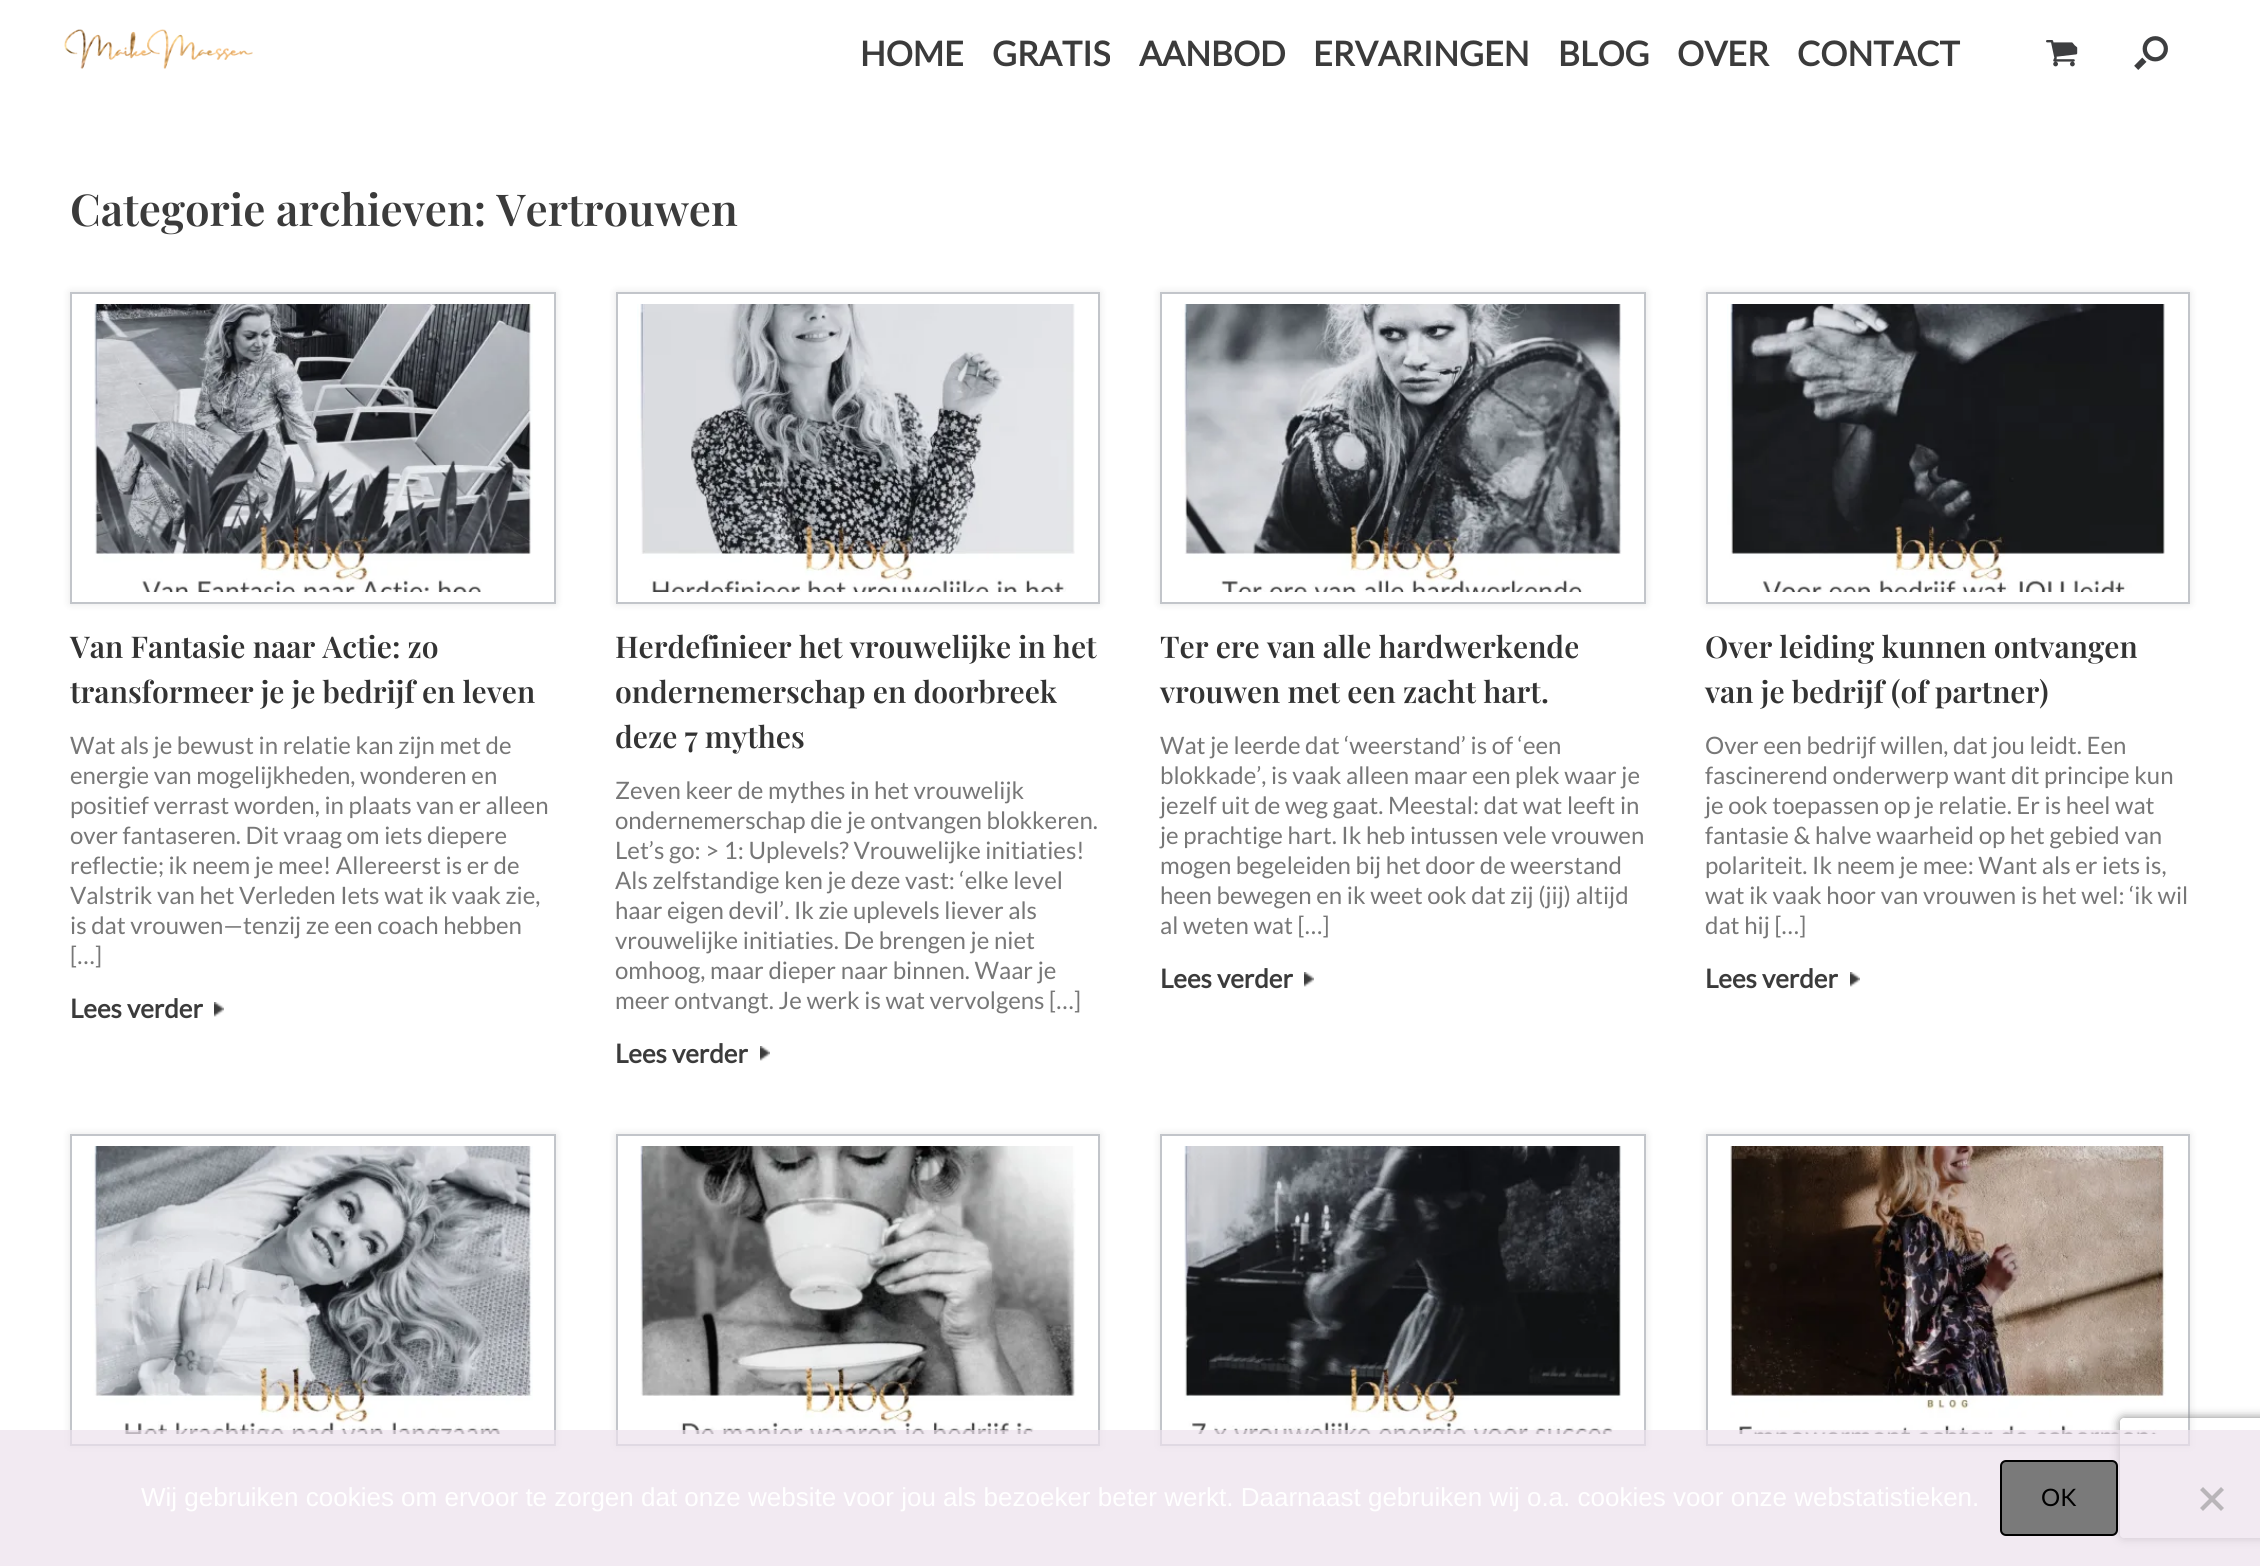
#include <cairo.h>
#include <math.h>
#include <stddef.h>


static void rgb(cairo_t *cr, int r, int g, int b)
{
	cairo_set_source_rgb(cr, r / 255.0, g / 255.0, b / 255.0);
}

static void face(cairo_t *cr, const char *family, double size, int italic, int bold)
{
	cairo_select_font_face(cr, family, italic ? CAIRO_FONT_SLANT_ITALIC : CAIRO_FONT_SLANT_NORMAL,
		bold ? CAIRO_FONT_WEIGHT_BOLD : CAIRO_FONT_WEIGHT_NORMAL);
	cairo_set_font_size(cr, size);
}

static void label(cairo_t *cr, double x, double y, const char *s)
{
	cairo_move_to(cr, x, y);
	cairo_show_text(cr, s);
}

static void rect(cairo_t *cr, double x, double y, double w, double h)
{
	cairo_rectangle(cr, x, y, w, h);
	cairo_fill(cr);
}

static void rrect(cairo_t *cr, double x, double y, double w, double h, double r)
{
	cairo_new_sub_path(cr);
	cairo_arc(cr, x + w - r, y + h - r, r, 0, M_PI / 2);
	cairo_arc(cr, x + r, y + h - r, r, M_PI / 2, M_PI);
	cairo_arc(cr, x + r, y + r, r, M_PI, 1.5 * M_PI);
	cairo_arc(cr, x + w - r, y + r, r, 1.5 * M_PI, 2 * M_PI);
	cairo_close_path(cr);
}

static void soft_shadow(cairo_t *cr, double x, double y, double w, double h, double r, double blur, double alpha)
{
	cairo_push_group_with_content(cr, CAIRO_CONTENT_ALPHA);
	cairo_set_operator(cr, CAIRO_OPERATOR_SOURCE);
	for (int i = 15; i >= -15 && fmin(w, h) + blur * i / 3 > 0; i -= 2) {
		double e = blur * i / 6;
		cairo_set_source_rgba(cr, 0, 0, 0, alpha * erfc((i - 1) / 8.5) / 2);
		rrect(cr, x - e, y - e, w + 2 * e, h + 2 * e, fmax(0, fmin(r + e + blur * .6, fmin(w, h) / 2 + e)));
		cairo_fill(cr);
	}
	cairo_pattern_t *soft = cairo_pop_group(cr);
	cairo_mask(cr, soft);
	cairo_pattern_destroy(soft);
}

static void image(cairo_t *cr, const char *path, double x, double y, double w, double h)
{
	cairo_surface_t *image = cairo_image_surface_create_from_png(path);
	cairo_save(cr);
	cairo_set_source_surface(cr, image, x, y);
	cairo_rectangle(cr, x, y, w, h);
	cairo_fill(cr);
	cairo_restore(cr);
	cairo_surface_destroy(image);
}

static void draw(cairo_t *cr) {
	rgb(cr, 255, 255, 255);
	cairo_paint(cr);
	image(cr, "image0.png", 64, 29, 189, 40);
	face(cr, "Lato", 34, 0, 1);
	rgb(cr, 59, 59, 59);
	label(cr, 860, 66, "HOME");
	label(cr, 992, 66, "GRATIS");
	label(cr, 1139, 66, "AANBOD");
	label(cr, 1313, 66, "ERVARINGEN");
	label(cr, 1558, 66, "BLOG");
	label(cr, 1677, 66, "OVER");
	label(cr, 1797, 66, "CONTACT");
	image(cr, "image1.png", 2046, 40, 32, 27);
	rgb(cr, 255, 255, 255);
	cairo_arc(cr, 2086, 34, 16, 0, 2 * M_PI);
	cairo_fill(cr);
	image(cr, "image2.png", 2134, 36, 34, 34);
	face(cr, "Playfair Display SemiBold", 44, 0, 0);
	rgb(cr, 59, 59, 59);
	label(cr, 70, 226, "Categorie archieven: Vertrouwen");
	cairo_save(cr);
	cairo_set_fill_rule(cr, CAIRO_FILL_RULE_EVEN_ODD);
	cairo_new_path(cr);
	cairo_move_to(cr, 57, 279);
	cairo_line_to(cr, 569, 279);
	cairo_line_to(cr, 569, 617);
	cairo_line_to(cr, 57, 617);
	cairo_close_path(cr);
	cairo_move_to(cr, 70, 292);
	cairo_line_to(cr, 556, 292);
	cairo_line_to(cr, 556, 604);
	cairo_line_to(cr, 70, 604);
	cairo_close_path(cr);
	cairo_clip(cr);
	rgb(cr, 0, 0, 0);
	soft_shadow(cr, 70, 292, 486, 312, 0, 4, 0.1);
	cairo_restore(cr);
	cairo_rectangle(cr, 71, 293, 484, 310);
	rgb(cr, 194, 197, 202);
	cairo_stroke(cr);
	image(cr, "image3.png", 94, 304, 439, 288);
	face(cr, "Playfair Display SemiBold", 30, 0, 0);
	rgb(cr, 51, 51, 51);
	label(cr, 70, 658, "Van Fantasie naar Actie: zo");
	label(cr, 70, 703, "transformeer je je bedrijf en leven");
	face(cr, "Lato", 24, 0, 0);
	rgb(cr, 119, 119, 119);
	label(cr, 70, 754, "Wat als je bewust in relatie kan zijn met de");
	label(cr, 70, 784, "energie van mogelijkheden, wonderen en");
	label(cr, 70, 814, "positief verrast worden, in plaats van er alleen");
	label(cr, 70, 844, "over fantaseren. Dit vraag om iets diepere");
	label(cr, 70, 874, "reflectie; ik neem je mee! Allereerst is er de");
	label(cr, 70, 904, "Valstrik van het Verleden Iets wat ik vaak zie,");
	label(cr, 70, 934, "is dat vrouwen—tenzij ze een coach hebben");
	label(cr, 70, 964, "[…]");
	face(cr, "Lato", 26, 0, 1);
	rgb(cr, 59, 59, 59);
	label(cr, 70, 1018, "Lees verder");
	image(cr, "image4.png", 214, 1002, 10, 15);
	cairo_save(cr);
	cairo_set_fill_rule(cr, CAIRO_FILL_RULE_EVEN_ODD);
	cairo_new_path(cr);
	cairo_move_to(cr, 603, 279);
	cairo_line_to(cr, 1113, 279);
	cairo_line_to(cr, 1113, 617);
	cairo_line_to(cr, 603, 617);
	cairo_close_path(cr);
	cairo_move_to(cr, 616, 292);
	cairo_line_to(cr, 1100, 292);
	cairo_line_to(cr, 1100, 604);
	cairo_line_to(cr, 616, 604);
	cairo_close_path(cr);
	cairo_clip(cr);
	rgb(cr, 0, 0, 0);
	soft_shadow(cr, 616, 292, 484, 312, 0, 4, 0.1);
	cairo_restore(cr);
	cairo_rectangle(cr, 617, 293, 482, 310);
	rgb(cr, 194, 197, 202);
	cairo_stroke(cr);
	image(cr, "image5.png", 637, 304, 438, 288);
	face(cr, "Playfair Display SemiBold", 30, 0, 0);
	rgb(cr, 51, 51, 51);
	label(cr, 615, 658, "Herdefinieer het vrouwelijke in het");
	label(cr, 615, 703, "ondernemerschap en doorbreek");
	label(cr, 615, 748, "deze 7 mythes");
	face(cr, "Lato", 24, 0, 0);
	rgb(cr, 119, 119, 119);
	label(cr, 615, 799, "Zeven keer de mythes in het vrouwelijk");
	label(cr, 615, 829, "ondernemerschap die je ontvangen blokkeren.");
	label(cr, 615, 859, "Let’s go: > 1: Uplevels? Vrouwelijke initiaties!");
	label(cr, 615, 889, "Als zelfstandige ken je deze vast: ‘elke level");
	label(cr, 615, 919, "haar eigen devil’. Ik zie uplevels liever als");
	label(cr, 615, 949, "vrouwelijke initiaties. De brengen je niet");
	label(cr, 615, 979, "omhoog, maar dieper naar binnen. Waar je");
	label(cr, 615, 1009, "meer ontvangt. Je werk is wat vervolgens […]");
	face(cr, "Lato", 26, 0, 1);
	rgb(cr, 59, 59, 59);
	label(cr, 615, 1063, "Lees verder");
	image(cr, "image4.png", 760, 1046, 10, 15);
	cairo_save(cr);
	cairo_set_fill_rule(cr, CAIRO_FILL_RULE_EVEN_ODD);
	cairo_new_path(cr);
	cairo_move_to(cr, 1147, 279);
	cairo_line_to(cr, 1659, 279);
	cairo_line_to(cr, 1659, 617);
	cairo_line_to(cr, 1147, 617);
	cairo_close_path(cr);
	cairo_move_to(cr, 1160, 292);
	cairo_line_to(cr, 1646, 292);
	cairo_line_to(cr, 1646, 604);
	cairo_line_to(cr, 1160, 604);
	cairo_close_path(cr);
	cairo_clip(cr);
	rgb(cr, 0, 0, 0);
	soft_shadow(cr, 1160, 292, 486, 312, 0, 4, 0.1);
	cairo_restore(cr);
	cairo_rectangle(cr, 1161, 293, 484, 310);
	rgb(cr, 194, 197, 202);
	cairo_stroke(cr);
	image(cr, "image6.png", 1181, 304, 441, 288);
	face(cr, "Playfair Display SemiBold", 30, 0, 0);
	rgb(cr, 51, 51, 51);
	label(cr, 1160, 658, "Ter ere van alle hardwerkende");
	label(cr, 1160, 703, "vrouwen met een zacht hart.");
	face(cr, "Lato", 24, 0, 0);
	rgb(cr, 119, 119, 119);
	label(cr, 1160, 754, "Wat je leerde dat ‘weerstand’ is of ‘een");
	label(cr, 1160, 784, "blokkade’, is vaak alleen maar een plek waar je");
	label(cr, 1160, 814, "jezelf uit de weg gaat. Meestal: dat wat leeft in");
	label(cr, 1160, 844, "je prachtige hart. Ik heb intussen vele vrouwen");
	label(cr, 1160, 874, "mogen begeleiden bij het door de weerstand");
	label(cr, 1160, 904, "heen bewegen en ik weet ook dat zij (jij) altijd");
	label(cr, 1160, 934, "al weten wat […]");
	face(cr, "Lato", 26, 0, 1);
	rgb(cr, 59, 59, 59);
	label(cr, 1160, 988, "Lees verder");
	image(cr, "image4.png", 1304, 972, 10, 15);
	cairo_save(cr);
	cairo_set_fill_rule(cr, CAIRO_FILL_RULE_EVEN_ODD);
	cairo_new_path(cr);
	cairo_move_to(cr, 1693, 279);
	cairo_line_to(cr, 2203, 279);
	cairo_line_to(cr, 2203, 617);
	cairo_line_to(cr, 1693, 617);
	cairo_close_path(cr);
	cairo_move_to(cr, 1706, 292);
	cairo_line_to(cr, 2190, 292);
	cairo_line_to(cr, 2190, 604);
	cairo_line_to(cr, 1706, 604);
	cairo_close_path(cr);
	cairo_clip(cr);
	rgb(cr, 0, 0, 0);
	soft_shadow(cr, 1706, 292, 484, 312, 0, 4, 0.1);
	cairo_restore(cr);
	cairo_rectangle(cr, 1707, 293, 482, 310);
	rgb(cr, 194, 197, 202);
	cairo_stroke(cr);
	image(cr, "image7.png", 1727, 304, 438, 288);
	face(cr, "Playfair Display SemiBold", 30, 0, 0);
	rgb(cr, 51, 51, 51);
	label(cr, 1705, 658, "Over leiding kunnen ontvangen");
	label(cr, 1705, 703, "van je bedrijf (of partner)");
	face(cr, "Lato", 24, 0, 0);
	rgb(cr, 119, 119, 119);
	label(cr, 1705, 754, "Over een bedrijf willen, dat jou leidt. Een");
	label(cr, 1705, 784, "fascinerend onderwerp want dit principe kun");
	label(cr, 1705, 814, "je ook toepassen op je relatie. Er is heel wat");
	label(cr, 1705, 844, "fantasie & halve waarheid op het gebied van");
	label(cr, 1705, 874, "polariteit. Ik neem je mee: Want als er iets is,");
	label(cr, 1705, 904, "wat ik vaak hoor van vrouwen is het wel: ‘ik wil");
	label(cr, 1705, 934, "dat hij […]");
	face(cr, "Lato", 26, 0, 1);
	rgb(cr, 59, 59, 59);
	label(cr, 1705, 988, "Lees verder");
	image(cr, "image4.png", 1850, 972, 10, 15);
	cairo_save(cr);
	cairo_set_fill_rule(cr, CAIRO_FILL_RULE_EVEN_ODD);
	cairo_new_path(cr);
	cairo_move_to(cr, 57, 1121);
	cairo_line_to(cr, 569, 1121);
	cairo_line_to(cr, 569, 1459);
	cairo_line_to(cr, 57, 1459);
	cairo_close_path(cr);
	cairo_move_to(cr, 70, 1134);
	cairo_line_to(cr, 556, 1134);
	cairo_line_to(cr, 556, 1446);
	cairo_line_to(cr, 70, 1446);
	cairo_close_path(cr);
	cairo_clip(cr);
	rgb(cr, 0, 0, 0);
	soft_shadow(cr, 70, 1134, 486, 312, 0, 4, 0.1);
	cairo_restore(cr);
	cairo_rectangle(cr, 71, 1135, 484, 310);
	rgb(cr, 194, 197, 202);
	cairo_stroke(cr);
	image(cr, "image8.png", 91, 1146, 442, 288);
	cairo_save(cr);
	cairo_set_fill_rule(cr, CAIRO_FILL_RULE_EVEN_ODD);
	cairo_new_path(cr);
	cairo_move_to(cr, 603, 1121);
	cairo_line_to(cr, 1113, 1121);
	cairo_line_to(cr, 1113, 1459);
	cairo_line_to(cr, 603, 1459);
	cairo_close_path(cr);
	cairo_move_to(cr, 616, 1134);
	cairo_line_to(cr, 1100, 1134);
	cairo_line_to(cr, 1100, 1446);
	cairo_line_to(cr, 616, 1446);
	cairo_close_path(cr);
	cairo_clip(cr);
	rgb(cr, 0, 0, 0);
	soft_shadow(cr, 616, 1134, 484, 312, 0, 4, 0.1);
	cairo_restore(cr);
	cairo_rectangle(cr, 617, 1135, 482, 310);
	cairo_stroke(cr);
	image(cr, "image9.png", 640, 1146, 436, 288);
	cairo_save(cr);
	cairo_set_fill_rule(cr, CAIRO_FILL_RULE_EVEN_ODD);
	cairo_new_path(cr);
	cairo_move_to(cr, 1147, 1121);
	cairo_line_to(cr, 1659, 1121);
	cairo_line_to(cr, 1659, 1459);
	cairo_line_to(cr, 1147, 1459);
	cairo_close_path(cr);
	cairo_move_to(cr, 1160, 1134);
	cairo_line_to(cr, 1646, 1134);
	cairo_line_to(cr, 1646, 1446);
	cairo_line_to(cr, 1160, 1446);
	cairo_close_path(cr);
	cairo_clip(cr);
	rgb(cr, 0, 0, 0);
	soft_shadow(cr, 1160, 1134, 486, 312, 0, 4, 0.1);
	cairo_restore(cr);
	cairo_rectangle(cr, 1161, 1135, 484, 310);
	cairo_stroke(cr);
	image(cr, "image10.png", 1184, 1146, 438, 288);
	cairo_save(cr);
	cairo_set_fill_rule(cr, CAIRO_FILL_RULE_EVEN_ODD);
	cairo_new_path(cr);
	cairo_move_to(cr, 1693, 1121);
	cairo_line_to(cr, 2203, 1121);
	cairo_line_to(cr, 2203, 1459);
	cairo_line_to(cr, 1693, 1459);
	cairo_close_path(cr);
	cairo_move_to(cr, 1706, 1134);
	cairo_line_to(cr, 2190, 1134);
	cairo_line_to(cr, 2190, 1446);
	cairo_line_to(cr, 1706, 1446);
	cairo_close_path(cr);
	cairo_clip(cr);
	rgb(cr, 0, 0, 0);
	soft_shadow(cr, 1706, 1134, 484, 312, 0, 4, 0.1);
	cairo_restore(cr);
	cairo_rectangle(cr, 1707, 1135, 482, 310);
	cairo_stroke(cr);
	image(cr, "image11.png", 1730, 1146, 436, 288);
	cairo_save(cr);
	cairo_set_fill_rule(cr, CAIRO_FILL_RULE_EVEN_ODD);
	cairo_new_path(cr);
	cairo_move_to(cr, 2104, 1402);
	cairo_line_to(cr, 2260, 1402);
	cairo_line_to(cr, 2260, 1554);
	cairo_line_to(cr, 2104, 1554);
	cairo_close_path(cr);
	cairo_move_to(cr, 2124, 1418);
	cairo_line_to(cr, 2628, 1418);
	cairo_curve_to(cr, 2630, 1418, 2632, 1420, 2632, 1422);
	cairo_line_to(cr, 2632, 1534);
	cairo_curve_to(cr, 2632, 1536, 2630, 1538, 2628, 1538);
	cairo_line_to(cr, 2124, 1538);
	cairo_curve_to(cr, 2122, 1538, 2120, 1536, 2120, 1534);
	cairo_line_to(cr, 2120, 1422);
	cairo_curve_to(cr, 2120, 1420, 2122, 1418, 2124, 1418);
	cairo_close_path(cr);
	cairo_clip(cr);
	rgb(cr, 128, 128, 128);
	soft_shadow(cr, 2120, 1418, 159, 120, 4, 5, 1);
	cairo_restore(cr);
	cairo_set_source_rgba(cr, 0.929, 0.882, 0.925, 0.71);
	rect(cr, 0, 1430, 2260, 136);
	face(cr, "Liberation Sans", 26, 0, 0);
	rgb(cr, 255, 255, 255);
	label(cr, 141, 1506, "Wij gebruiken cookies om ervoor te zorgen dat onze website voor jou als bezoeker beter werkt. Daarnaast gebruiken wij o.a. cookies voor onze webstatistieken.");
	rgb(cr, 122, 122, 122);
	rrect(cr, 2001, 1461, 116, 74, 5);
	cairo_fill_preserve(cr);
	rgb(cr, 0, 0, 0);
	cairo_stroke(cr);
	face(cr, "Lato", 24, 0, 0);
	label(cr, 2041, 1506, "OK");
	rgb(cr, 185, 181, 185);
	cairo_new_path(cr);
	cairo_move_to(cr, 2221, 1487);
	cairo_line_to(cr, 2224, 1490);
	cairo_line_to(cr, 2203, 1511);
	cairo_line_to(cr, 2200, 1508);
	cairo_close_path(cr);
	cairo_fill(cr);
	cairo_new_path(cr);
	cairo_move_to(cr, 2200, 1490);
	cairo_line_to(cr, 2203, 1487);
	cairo_line_to(cr, 2224, 1508);
	cairo_line_to(cr, 2221, 1511);
	cairo_close_path(cr);
	cairo_fill(cr);
}

int main(void) {
	cairo_surface_t *surface = cairo_image_surface_create(CAIRO_FORMAT_RGB24, 2260, 1566);
	cairo_t *cr = cairo_create(surface);
	cairo_font_options_t *options = cairo_font_options_create();
	cairo_font_options_set_hint_metrics(options, CAIRO_HINT_METRICS_OFF);
	cairo_font_options_set_hint_style(options, CAIRO_HINT_STYLE_NONE);
	cairo_set_font_options(cr, options);
	cairo_set_miter_limit(cr, 4);
	draw(cr);
	cairo_surface_write_to_png(surface, "render.png");
	cairo_font_options_destroy(options);
	cairo_destroy(cr);
	cairo_surface_destroy(surface);
	return 0;
}
